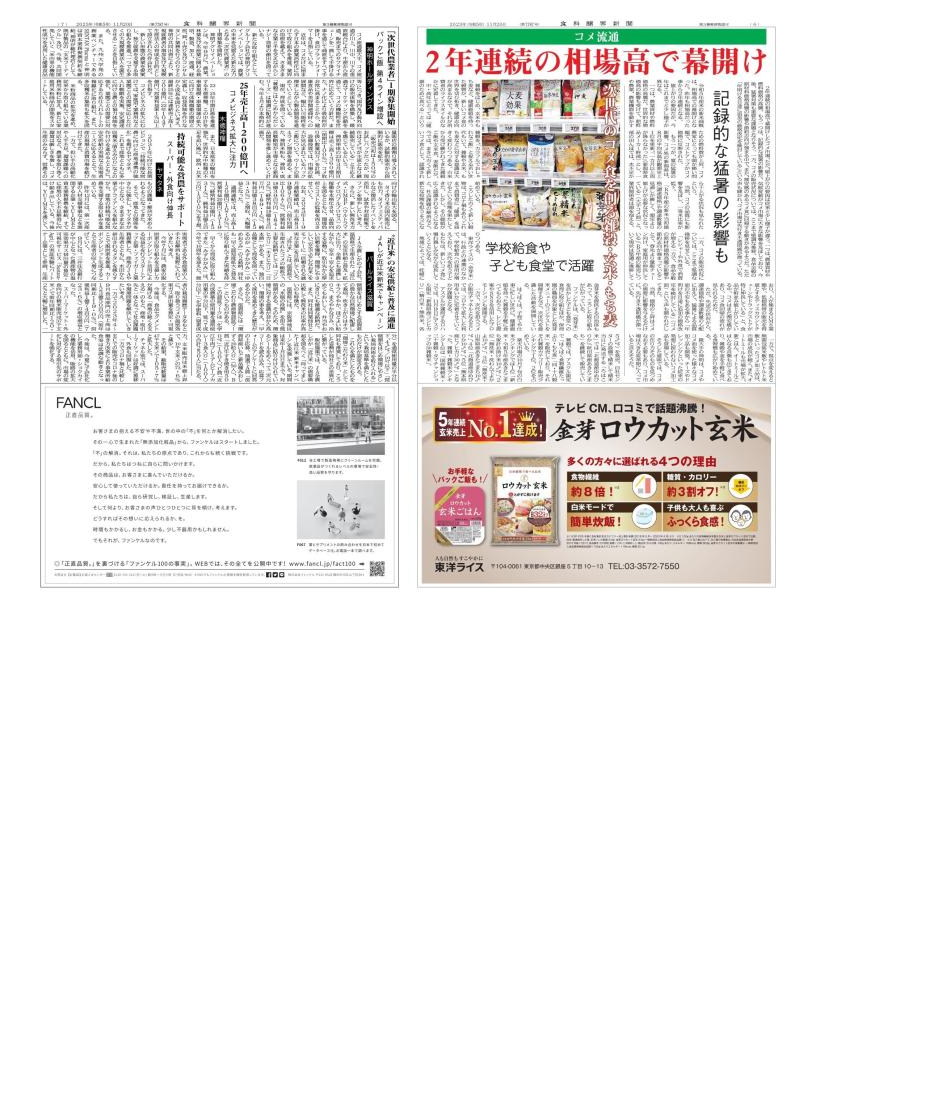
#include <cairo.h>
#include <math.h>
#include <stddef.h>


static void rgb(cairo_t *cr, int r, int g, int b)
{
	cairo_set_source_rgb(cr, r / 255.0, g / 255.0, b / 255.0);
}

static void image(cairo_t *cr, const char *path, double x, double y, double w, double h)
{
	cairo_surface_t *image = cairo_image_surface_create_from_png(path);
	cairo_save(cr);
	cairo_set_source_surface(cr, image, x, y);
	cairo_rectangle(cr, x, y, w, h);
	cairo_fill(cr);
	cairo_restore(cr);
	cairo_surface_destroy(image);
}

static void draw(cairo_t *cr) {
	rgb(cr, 255, 255, 255);
	cairo_paint(cr);
	image(cr, "image0.png", 40, 16, 736, 576);
}

int main(void) {
	cairo_surface_t *surface = cairo_image_surface_create(CAIRO_FORMAT_RGB24, 934, 1094);
	cairo_t *cr = cairo_create(surface);
	cairo_font_options_t *options = cairo_font_options_create();
	cairo_font_options_set_hint_metrics(options, CAIRO_HINT_METRICS_OFF);
	cairo_font_options_set_hint_style(options, CAIRO_HINT_STYLE_NONE);
	cairo_set_font_options(cr, options);
	cairo_set_miter_limit(cr, 4);
	draw(cr);
	cairo_surface_write_to_png(surface, "render.png");
	cairo_font_options_destroy(options);
	cairo_destroy(cr);
	cairo_surface_destroy(surface);
	return 0;
}
